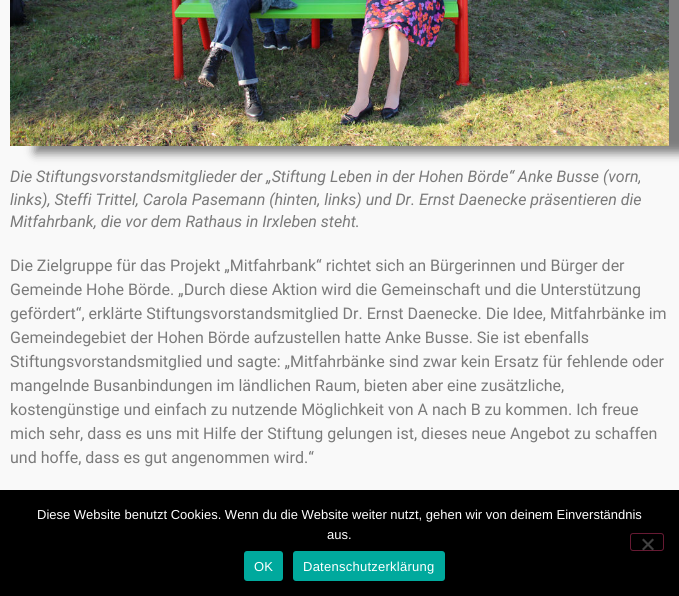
#include <cairo.h>
#include <math.h>
#include <stddef.h>


static void rgb(cairo_t *cr, int r, int g, int b)
{
	cairo_set_source_rgb(cr, r / 255.0, g / 255.0, b / 255.0);
}

static void face(cairo_t *cr, const char *family, double size, int italic, int bold)
{
	cairo_select_font_face(cr, family, italic ? CAIRO_FONT_SLANT_ITALIC : CAIRO_FONT_SLANT_NORMAL,
		bold ? CAIRO_FONT_WEIGHT_BOLD : CAIRO_FONT_WEIGHT_NORMAL);
	cairo_set_font_size(cr, size);
}

static void label(cairo_t *cr, double x, double y, const char *s)
{
	cairo_move_to(cr, x, y);
	cairo_show_text(cr, s);
}

static void tracked(cairo_t *cr, double x, double y, const char *s, double letter, double word)
{
	cairo_move_to(cr, x, y);
	while (*s) {
		char ch[5] = {0};
		int n = 0;
		do ch[n++] = *s++; while ((*s & 0xC0) == 0x80);
		cairo_show_text(cr, ch);
		cairo_rel_move_to(cr, letter + word * (*ch == ' '), 0);
	}
}

static void rect(cairo_t *cr, double x, double y, double w, double h)
{
	cairo_rectangle(cr, x, y, w, h);
	cairo_fill(cr);
}

static void rrect(cairo_t *cr, double x, double y, double w, double h, double r)
{
	cairo_new_sub_path(cr);
	cairo_arc(cr, x + w - r, y + h - r, r, 0, M_PI / 2);
	cairo_arc(cr, x + r, y + h - r, r, M_PI / 2, M_PI);
	cairo_arc(cr, x + r, y + r, r, M_PI, 1.5 * M_PI);
	cairo_arc(cr, x + w - r, y + r, r, 1.5 * M_PI, 2 * M_PI);
	cairo_close_path(cr);
}

static void soft_shadow(cairo_t *cr, double x, double y, double w, double h, double r, double blur, double alpha)
{
	cairo_push_group_with_content(cr, CAIRO_CONTENT_ALPHA);
	cairo_set_operator(cr, CAIRO_OPERATOR_SOURCE);
	for (int i = 15; i >= -15 && fmin(w, h) + blur * i / 3 > 0; i -= 2) {
		double e = blur * i / 6;
		cairo_set_source_rgba(cr, 0, 0, 0, alpha * erfc((i - 1) / 8.5) / 2);
		rrect(cr, x - e, y - e, w + 2 * e, h + 2 * e, fmax(0, fmin(r + e + blur * .6, fmin(w, h) / 2 + e)));
		cairo_fill(cr);
	}
	cairo_pattern_t *soft = cairo_pop_group(cr);
	cairo_mask(cr, soft);
	cairo_pattern_destroy(soft);
}

static void image(cairo_t *cr, const char *path, double x, double y, double w, double h)
{
	cairo_surface_t *image = cairo_image_surface_create_from_png(path);
	cairo_save(cr);
	cairo_set_source_surface(cr, image, x, y);
	cairo_rectangle(cr, x, y, w, h);
	cairo_fill(cr);
	cairo_restore(cr);
	cairo_surface_destroy(image);
}

static void draw(cairo_t *cr) {
	rgb(cr, 249, 249, 249);
	cairo_paint(cr);
	rgb(cr, 0, 0, 0);
	soft_shadow(cr, 35, -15, 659, 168, 0, 5, 0.5);
	image(cr, "image0.png", 10, 0, 659, 146);
	face(cr, "Roboto", 16, 1, 0);
	rgb(cr, 122, 122, 122);
	label(cr, 10, 182, "Die Stiftungsvorstandsmitglieder der „Stiftung Leben in der Hohen Börde“ Anke Busse (vorn,");
	label(cr, 10, 205, "links), Steffi Trittel, Carola Pasemann (hinten, links) und Dr. Ernst Daenecke präsentieren die");
	label(cr, 10, 227, "Mitfahrbank, die vor dem Rathaus in Irxleben steht.");
	face(cr, "Roboto", 16, 0, 0);
	label(cr, 10, 271, "Die Zielgruppe für das Projekt „Mitfahrbank“ richtet sich an Bürgerinnen und Bürger der");
	label(cr, 10, 295, "Gemeinde Hohe Börde. „Durch diese Aktion wird die Gemeinschaft und die Unterstützung");
	label(cr, 10, 319, "gefördert“, erklärte Stiftungsvorstandsmitglied Dr. Ernst Daenecke. Die Idee, Mitfahrbänke im");
	label(cr, 10, 343, "Gemeindegebiet der Hohen Börde aufzustellen hatte Anke Busse. Sie ist ebenfalls");
	label(cr, 10, 367, "Stiftungsvorstandsmitglied und sagte: „Mitfahrbänke sind zwar kein Ersatz für fehlende oder");
	label(cr, 10, 391, "mangelnde Busanbindungen im ländlichen Raum, bieten aber eine zusätzliche,");
	label(cr, 10, 415, "kostengünstige und einfach zu nutzende Möglichkeit von A nach B zu kommen. Ich freue");
	label(cr, 10, 439, "mich sehr, dass es uns mit Hilfe der Stiftung gelungen ist, dieses neue Angebot zu schaffen");
	label(cr, 10, 463, "und hoffe, dass es gut angenommen wird.“");
	rgb(cr, 0, 0, 0);
	rect(cr, 0, 490, 679, 106);
	face(cr, "Liberation Sans", 13, 0, 0);
	rgb(cr, 255, 255, 255);
	label(cr, 37, 519, "Diese Website benutzt Cookies. Wenn du die Website weiter nutzt, gehen wir von deinem Einverständnis");
	label(cr, 327, 539, "aus.");
	rrect(cr, 630.5, 533.5, 33, 17, 2.5);
	rgb(cr, 102, 26, 51);
	cairo_set_line_width(cr, 1);
	cairo_stroke(cr);
	rgb(cr, 64, 64, 64);
	cairo_new_path(cr);
	cairo_move_to(cr, 652.5, 538.5);
	cairo_line_to(cr, 654, 540);
	cairo_line_to(cr, 643.5, 550.5);
	cairo_line_to(cr, 642, 549);
	cairo_close_path(cr);
	cairo_fill(cr);
	cairo_new_path(cr);
	cairo_move_to(cr, 642, 540);
	cairo_line_to(cr, 643.5, 538.5);
	cairo_line_to(cr, 654, 549);
	cairo_line_to(cr, 652.5, 550.5);
	cairo_close_path(cr);
	cairo_fill(cr);
	rgb(cr, 0, 169, 157);
	rrect(cr, 244, 551, 39, 30, 3);
	cairo_fill(cr);
	rgb(cr, 255, 255, 255);
	tracked(cr, 254, 571, "OK", 0.25, 0);
	rgb(cr, 0, 169, 157);
	rrect(cr, 293, 551, 152, 30, 3);
	cairo_fill(cr);
	rgb(cr, 255, 255, 255);
	tracked(cr, 303, 571, "Datenschutzerklärung", 0.25, 0);
}

int main(void) {
	cairo_surface_t *surface = cairo_image_surface_create(CAIRO_FORMAT_RGB24, 679, 596);
	cairo_t *cr = cairo_create(surface);
	cairo_font_options_t *options = cairo_font_options_create();
	cairo_font_options_set_hint_metrics(options, CAIRO_HINT_METRICS_OFF);
	cairo_font_options_set_hint_style(options, CAIRO_HINT_STYLE_NONE);
	cairo_set_font_options(cr, options);
	cairo_set_miter_limit(cr, 4);
	draw(cr);
	cairo_surface_write_to_png(surface, "render.png");
	cairo_font_options_destroy(options);
	cairo_destroy(cr);
	cairo_surface_destroy(surface);
	return 0;
}
